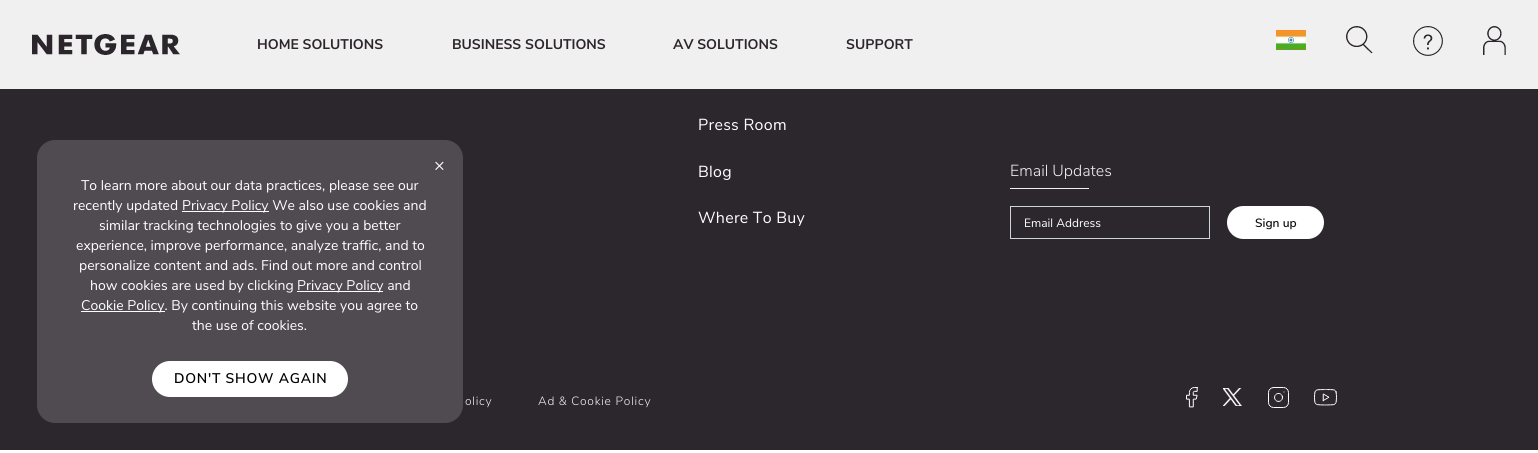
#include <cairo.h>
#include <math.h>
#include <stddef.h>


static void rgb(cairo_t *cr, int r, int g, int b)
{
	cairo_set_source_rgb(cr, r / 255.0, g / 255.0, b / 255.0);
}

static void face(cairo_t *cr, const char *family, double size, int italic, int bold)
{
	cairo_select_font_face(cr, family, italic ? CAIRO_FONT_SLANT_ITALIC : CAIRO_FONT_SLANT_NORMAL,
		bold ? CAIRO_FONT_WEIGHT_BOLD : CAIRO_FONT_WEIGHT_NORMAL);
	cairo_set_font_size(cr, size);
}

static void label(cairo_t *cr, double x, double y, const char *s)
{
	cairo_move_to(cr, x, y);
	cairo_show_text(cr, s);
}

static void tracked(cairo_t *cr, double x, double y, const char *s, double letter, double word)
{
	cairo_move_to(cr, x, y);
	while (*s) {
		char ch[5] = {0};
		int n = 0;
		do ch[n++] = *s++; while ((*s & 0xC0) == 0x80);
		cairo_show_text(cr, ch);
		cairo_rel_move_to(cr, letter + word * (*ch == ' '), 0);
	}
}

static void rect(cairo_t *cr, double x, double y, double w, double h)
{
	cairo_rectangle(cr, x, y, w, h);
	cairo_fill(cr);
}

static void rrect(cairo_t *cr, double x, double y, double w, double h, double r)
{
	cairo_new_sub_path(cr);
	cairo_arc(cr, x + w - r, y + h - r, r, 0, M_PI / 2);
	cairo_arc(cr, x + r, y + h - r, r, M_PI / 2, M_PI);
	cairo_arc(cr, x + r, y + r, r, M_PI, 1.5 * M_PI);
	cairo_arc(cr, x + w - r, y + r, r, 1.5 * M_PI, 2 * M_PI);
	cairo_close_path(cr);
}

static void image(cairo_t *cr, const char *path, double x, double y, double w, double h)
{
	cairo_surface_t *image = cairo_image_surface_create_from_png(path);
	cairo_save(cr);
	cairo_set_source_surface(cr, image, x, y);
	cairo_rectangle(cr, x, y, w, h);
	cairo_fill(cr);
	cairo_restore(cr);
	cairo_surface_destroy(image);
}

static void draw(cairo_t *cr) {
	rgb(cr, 255, 255, 255);
	cairo_paint(cr);
	rgb(cr, 241, 240, 240);
	rect(cr, 0, 0, 1538, 89);
	image(cr, "image0.png", 32, 34, 148, 21);
	face(cr, "Nunito Sans", 14, 0, 1);
	rgb(cr, 43, 38, 43);
	label(cr, 257, 49, "HOME SOLUTIONS");
	label(cr, 452, 49, "BUSINESS SOLUTIONS");
	label(cr, 673, 49, "AV SOLUTIONS");
	label(cr, 846, 49, "SUPPORT");
	image(cr, "image1.png", 1276, 30, 30, 20);
	image(cr, "image2.png", 1346, 26, 27, 28);
	image(cr, "image3.png", 1413, 26, 30, 30);
	image(cr, "image4.png", 1483, 26, 23, 29);
	rgb(cr, 44, 38, 45);
	rect(cr, 0, 89, 1538, 361);
	rgb(cr, 80, 75, 81);
	rrect(cr, 37, 140, 426, 283, 18);
	cairo_fill(cr);
	face(cr, "Nunito Sans", 18, 0, 0);
	rgb(cr, 255, 255, 255);
	label(cr, 434, 171, "×");
	face(cr, "Nunito Sans", 14, 0, 0);
	label(cr, 81, 190, "To learn more about our data practices, please see our");
	label(cr, 73, 210, "recently updated");
	rect(cr, 182, 211, 87, 1);
	label(cr, 182, 210, "Privacy Policy We also use cookies and");
	label(cr, 99, 230, "similar tracking technologies to give you a better");
	label(cr, 76, 250, "experience, improve performance, analyze traffic, and to");
	label(cr, 79, 270, "personalize content and ads. Find out more and control");
	label(cr, 90, 290, "how cookies are used by clicking");
	rect(cr, 297, 291, 86, 1);
	label(cr, 297, 290, "Privacy Policy and");
	rect(cr, 81, 311, 84, 1);
	label(cr, 81, 310, "Cookie Policy. By continuing this website you agree to");
	label(cr, 192, 330, "the use of cookies.");
	rrect(cr, 153, 362, 194, 34, 17);
	cairo_fill_preserve(cr);
	cairo_stroke(cr);
	face(cr, "Nunito Sans SemiBold", 14, 0, 0);
	rgb(cr, 0, 0, 0);
	tracked(cr, 174, 383, "DON'T SHOW AGAIN", 0.75, 0);
	face(cr, "Nunito Sans", 16, 0, 0);
	rgb(cr, 255, 255, 255);
	tracked(cr, 698, 130, "Press Room", 0.25, 0);
	tracked(cr, 698, 177, "Blog", 0.25, 0);
	tracked(cr, 698, 223, "Where To Buy", 0.25, 0);
	face(cr, "Nunito Sans Light", 16, 0, 0);
	rgb(cr, 241, 240, 240);
	label(cr, 1010, 176, "Email Updates");
	rect(cr, 1010, 188, 79, 1);
	cairo_rectangle(cr, 1010.5, 206.5, 199, 32);
	rgb(cr, 206, 212, 218);
	cairo_set_line_width(cr, 1);
	cairo_stroke(cr);
	face(cr, "Nunito Sans", 12, 0, 0);
	rgb(cr, 255, 255, 255);
	label(cr, 1024, 227, "Email Address");
	rrect(cr, 1227, 206, 97, 33, 16.5);
	cairo_fill(cr);
	face(cr, "Nunito Sans SemiBold", 12, 0, 0);
	rgb(cr, 16, 12, 16);
	label(cr, 1255, 227, "Sign up");
	face(cr, "Nunito Sans Light", 12, 0, 0);
	rgb(cr, 241, 240, 240);
	tracked(cr, 465, 405, "olicy", 0.75, 0);
	tracked(cr, 538, 405, "Ad & Cookie Policy", 0.75, 0);
	image(cr, "image5.png", 1186, 387, 12, 21);
	image(cr, "image6.png", 1223, 388, 19, 18);
	image(cr, "image7.png", 1268, 387, 21, 21);
	image(cr, "image8.png", 1314, 389, 23, 17);
}

int main(void) {
	cairo_surface_t *surface = cairo_image_surface_create(CAIRO_FORMAT_RGB24, 1538, 453);
	cairo_t *cr = cairo_create(surface);
	cairo_font_options_t *options = cairo_font_options_create();
	cairo_font_options_set_hint_metrics(options, CAIRO_HINT_METRICS_OFF);
	cairo_font_options_set_hint_style(options, CAIRO_HINT_STYLE_NONE);
	cairo_set_font_options(cr, options);
	cairo_set_miter_limit(cr, 4);
	draw(cr);
	cairo_surface_write_to_png(surface, "render.png");
	cairo_font_options_destroy(options);
	cairo_destroy(cr);
	cairo_surface_destroy(surface);
	return 0;
}
